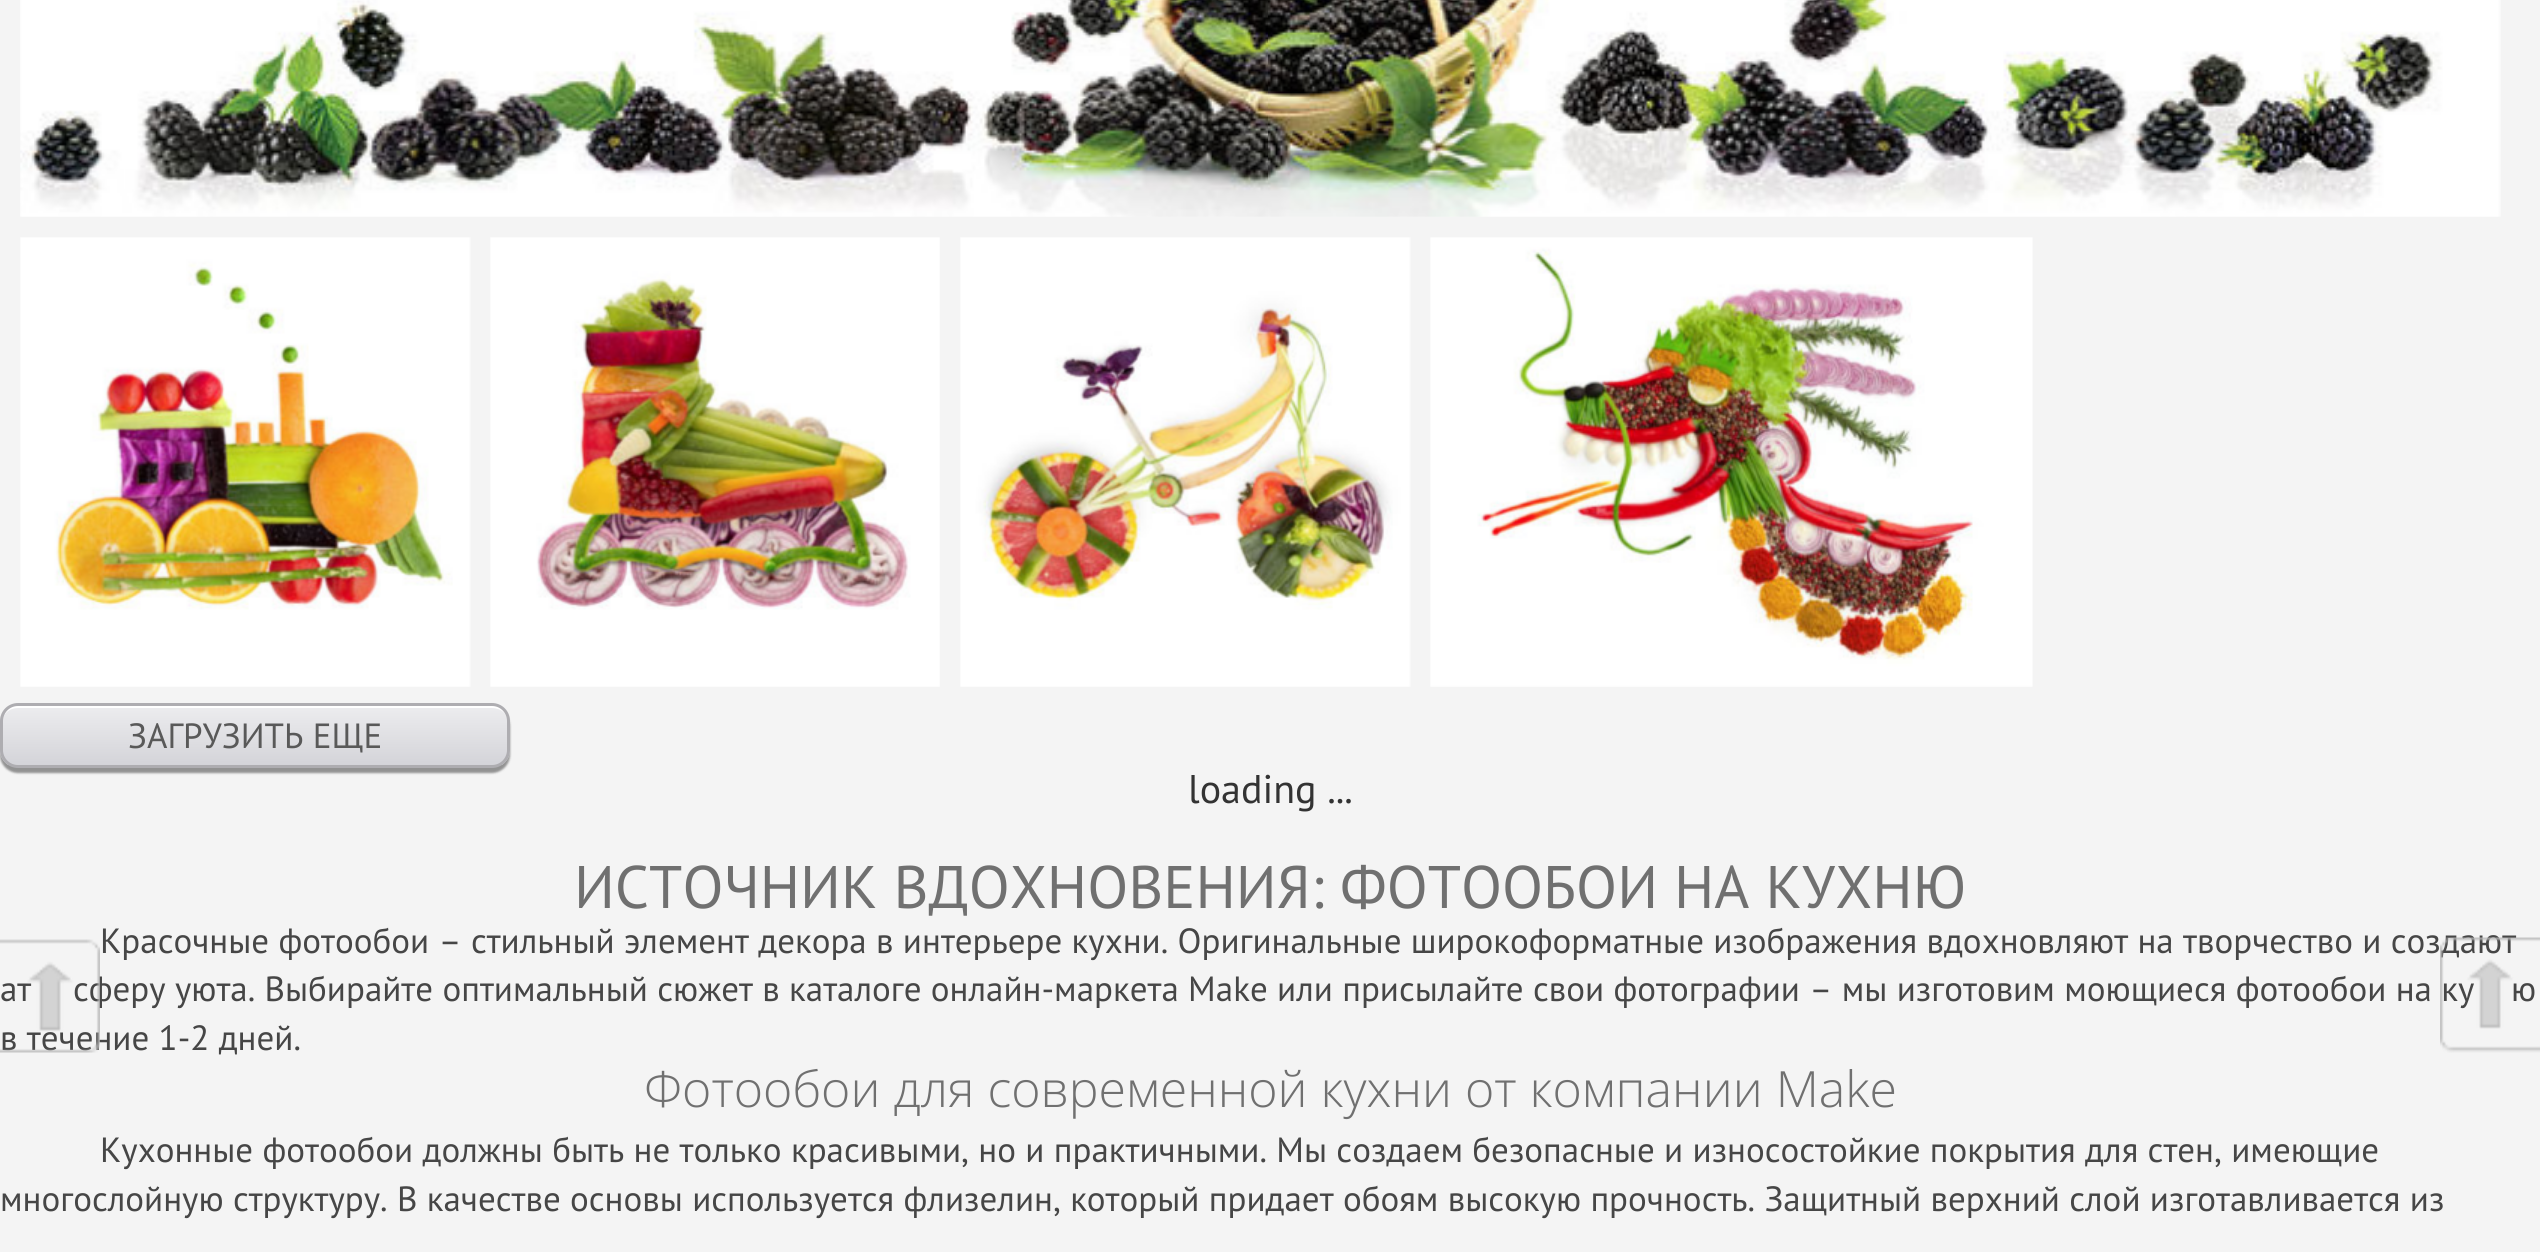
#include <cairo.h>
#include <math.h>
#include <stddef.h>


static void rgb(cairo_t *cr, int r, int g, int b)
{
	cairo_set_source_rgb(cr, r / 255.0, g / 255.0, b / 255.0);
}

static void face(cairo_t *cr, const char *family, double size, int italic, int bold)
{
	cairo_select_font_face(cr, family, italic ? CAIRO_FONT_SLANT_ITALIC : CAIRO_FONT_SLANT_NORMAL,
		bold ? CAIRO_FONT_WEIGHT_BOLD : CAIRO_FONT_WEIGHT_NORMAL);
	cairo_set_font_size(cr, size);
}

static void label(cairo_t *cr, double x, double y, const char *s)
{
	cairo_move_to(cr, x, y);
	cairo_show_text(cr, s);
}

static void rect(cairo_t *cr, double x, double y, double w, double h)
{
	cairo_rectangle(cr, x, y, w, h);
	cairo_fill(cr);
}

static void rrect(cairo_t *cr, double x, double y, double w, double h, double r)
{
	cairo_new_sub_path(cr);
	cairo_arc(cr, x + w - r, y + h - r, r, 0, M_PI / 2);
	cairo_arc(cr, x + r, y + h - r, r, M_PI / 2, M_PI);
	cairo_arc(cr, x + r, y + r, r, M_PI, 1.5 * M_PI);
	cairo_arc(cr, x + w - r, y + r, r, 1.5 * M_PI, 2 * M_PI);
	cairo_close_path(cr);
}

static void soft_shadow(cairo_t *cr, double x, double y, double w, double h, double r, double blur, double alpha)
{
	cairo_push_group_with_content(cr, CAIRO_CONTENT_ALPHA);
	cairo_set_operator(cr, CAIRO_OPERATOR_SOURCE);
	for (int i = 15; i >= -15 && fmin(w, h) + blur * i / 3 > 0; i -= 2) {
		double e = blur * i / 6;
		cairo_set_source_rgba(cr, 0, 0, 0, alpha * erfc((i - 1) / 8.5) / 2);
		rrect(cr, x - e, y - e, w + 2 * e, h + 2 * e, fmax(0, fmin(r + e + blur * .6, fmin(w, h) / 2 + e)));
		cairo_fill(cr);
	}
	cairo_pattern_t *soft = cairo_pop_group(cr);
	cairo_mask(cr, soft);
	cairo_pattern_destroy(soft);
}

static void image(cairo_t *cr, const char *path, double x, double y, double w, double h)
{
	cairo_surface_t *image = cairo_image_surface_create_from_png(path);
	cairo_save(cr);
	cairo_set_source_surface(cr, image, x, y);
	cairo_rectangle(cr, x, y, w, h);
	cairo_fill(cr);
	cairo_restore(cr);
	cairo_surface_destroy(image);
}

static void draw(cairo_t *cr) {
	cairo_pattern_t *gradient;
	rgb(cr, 244, 244, 244);
	cairo_paint(cr);
	image(cr, "image0.png", 20, 0, 2481, 217);
	image(cr, "image1.png", 20, 237, 451, 450);
	image(cr, "image2.png", 490, 237, 450, 450);
	image(cr, "image3.png", 960, 237, 451, 450);
	image(cr, "image4.png", 1430, 237, 603, 450);
	rgb(cr, 0, 0, 0);
	soft_shadow(cr, 0, 708, 510, 65, 18, 1, 0.4);
	cairo_save(cr);
	rrect(cr, 0, 703, 510, 65, 18);
	cairo_clip(cr);
	gradient = cairo_pattern_create_linear(255, 705, 255, 765);
	cairo_pattern_add_color_stop_rgba(gradient, 0, 0.929, 0.929, 0.937, 1);
	cairo_pattern_add_color_stop_rgba(gradient, 1, 0.831, 0.831, 0.851, 1);
	cairo_set_source(cr, gradient);
	cairo_pattern_destroy(gradient);
	rect(cr, 0, 705, 510, 60);
	cairo_restore(cr);
	rgb(cr, 255, 255, 255);
	cairo_new_path(cr);
	cairo_move_to(cr, 18, 708);
	cairo_line_to(cr, 492, 708);
	cairo_curve_to(cr, 501, 708, 508, 714, 508, 722);
	cairo_line_to(cr, 508, 720);
	cairo_curve_to(cr, 508, 712, 501, 705, 493, 705);
	cairo_line_to(cr, 18, 705);
	cairo_curve_to(cr, 11, 705, 6, 709, 4, 716);
	cairo_curve_to(cr, 6, 711, 12, 708, 18, 708);
	cairo_close_path(cr);
	cairo_fill(cr);
	rrect(cr, 1.5, 704.5, 507, 62, 16.5);
	rgb(cr, 174, 173, 177);
	cairo_set_line_width(cr, 3);
	cairo_stroke(cr);
	face(cr, "PT Sans", 35, 0, 0);
	rgb(cr, 89, 89, 89);
	label(cr, 128, 748, "ЗАГРУЗИТЬ ЕЩЕ");
	face(cr, "PT Sans", 40, 0, 0);
	rgb(cr, 51, 51, 51);
	label(cr, 1188, 803, "loading ...");
	face(cr, "PT Sans", 60, 0, 0);
	rgb(cr, 112, 112, 112);
	label(cr, 574, 908, "ИСТОЧНИК ВДОХНОВЕНИЯ: ФОТООБОИ НА КУХНЮ");
	face(cr, "PT Sans", 35, 0, 0);
	rgb(cr, 70, 70, 70);
	label(cr, 100, 953, "Красочные фотообои – стильный элемент декора в интерьере кухни. Оригинальные широкоформатные изображения вдохновляют на творчество и создают");
	label(cr, 0, 1001, "ат");
	label(cr, 73, 1001, "сферу уюта. Выбирайте оптимальный сюжет в каталоге онлайн-маркета Make или присылайте свои фотографии – мы изготовим моющиеся фотообои на ку");
	label(cr, 2511, 1001, "ю");
	label(cr, 0, 1050, "в течение 1-2 дней.");
	face(cr, "Open Sans Light", 50, 0, 0);
	rgb(cr, 112, 112, 112);
	label(cr, 644, 1107, "Фотообои для современной кухни от компании Make");
	face(cr, "PT Sans", 35, 0, 0);
	rgb(cr, 70, 70, 70);
	label(cr, 100, 1162, "Кухонные фотообои должны быть не только красивыми, но и практичными. Мы создаем безопасные и износостойкие покрытия для стен, имеющие");
	label(cr, 0, 1211, "многослойную структуру. В качестве основы используется флизелин, который придает обоям высокую прочность. Защитный верхний слой изготавливается из");
	image(cr, "image5.png", 0, 939, 100, 114);
	image(cr, "image6.png", 2440, 937, 100, 116);
}

int main(void) {
	cairo_surface_t *surface = cairo_image_surface_create(CAIRO_FORMAT_RGB24, 2540, 1252);
	cairo_t *cr = cairo_create(surface);
	cairo_font_options_t *options = cairo_font_options_create();
	cairo_font_options_set_hint_metrics(options, CAIRO_HINT_METRICS_OFF);
	cairo_font_options_set_hint_style(options, CAIRO_HINT_STYLE_NONE);
	cairo_set_font_options(cr, options);
	cairo_set_miter_limit(cr, 4);
	draw(cr);
	cairo_surface_write_to_png(surface, "render.png");
	cairo_font_options_destroy(options);
	cairo_destroy(cr);
	cairo_surface_destroy(surface);
	return 0;
}
